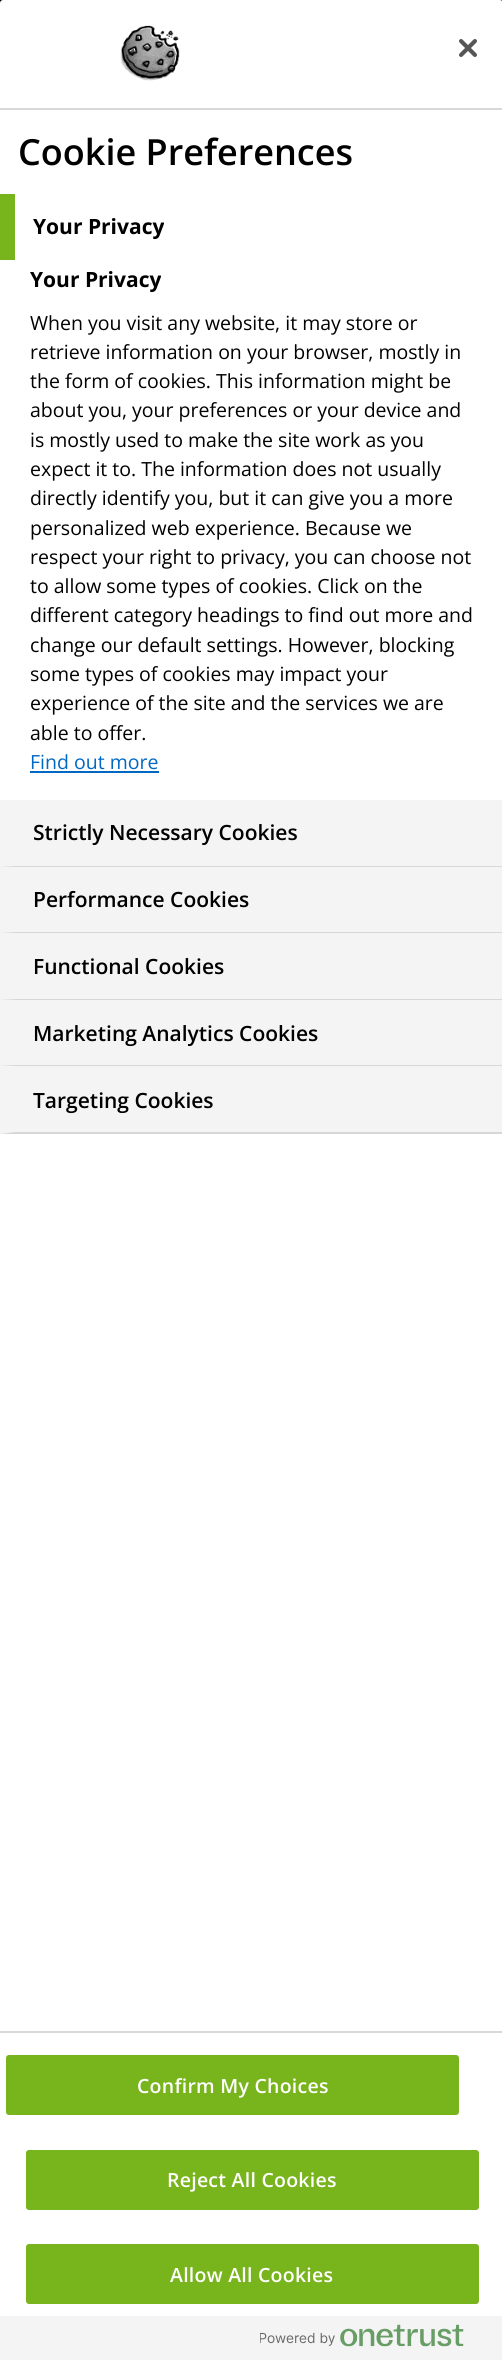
#include <cairo.h>
#include <math.h>
#include <stddef.h>


static void rgb(cairo_t *cr, int r, int g, int b)
{
	cairo_set_source_rgb(cr, r / 255.0, g / 255.0, b / 255.0);
}

static void face(cairo_t *cr, const char *family, double size, int italic, int bold)
{
	cairo_select_font_face(cr, family, italic ? CAIRO_FONT_SLANT_ITALIC : CAIRO_FONT_SLANT_NORMAL,
		bold ? CAIRO_FONT_WEIGHT_BOLD : CAIRO_FONT_WEIGHT_NORMAL);
	cairo_set_font_size(cr, size);
}

static void label(cairo_t *cr, double x, double y, const char *s)
{
	cairo_move_to(cr, x, y);
	cairo_show_text(cr, s);
}

static void tracked(cairo_t *cr, double x, double y, const char *s, double letter, double word)
{
	cairo_move_to(cr, x, y);
	while (*s) {
		char ch[5] = {0};
		int n = 0;
		do ch[n++] = *s++; while ((*s & 0xC0) == 0x80);
		cairo_show_text(cr, ch);
		cairo_rel_move_to(cr, letter + word * (*ch == ' '), 0);
	}
}

static void rect(cairo_t *cr, double x, double y, double w, double h)
{
	cairo_rectangle(cr, x, y, w, h);
	cairo_fill(cr);
}

static void rrect(cairo_t *cr, double x, double y, double w, double h, double r)
{
	cairo_new_sub_path(cr);
	cairo_arc(cr, x + w - r, y + h - r, r, 0, M_PI / 2);
	cairo_arc(cr, x + r, y + h - r, r, M_PI / 2, M_PI);
	cairo_arc(cr, x + r, y + r, r, M_PI, 1.5 * M_PI);
	cairo_arc(cr, x + w - r, y + r, r, 1.5 * M_PI, 2 * M_PI);
	cairo_close_path(cr);
}

static void soft_shadow(cairo_t *cr, double x, double y, double w, double h, double r, double blur, double alpha)
{
	cairo_push_group_with_content(cr, CAIRO_CONTENT_ALPHA);
	cairo_set_operator(cr, CAIRO_OPERATOR_SOURCE);
	for (int i = 15; i >= -15 && fmin(w, h) + blur * i / 3 > 0; i -= 2) {
		double e = blur * i / 6;
		cairo_set_source_rgba(cr, 0, 0, 0, alpha * erfc((i - 1) / 8.5) / 2);
		rrect(cr, x - e, y - e, w + 2 * e, h + 2 * e, fmax(0, fmin(r + e + blur * .6, fmin(w, h) / 2 + e)));
		cairo_fill(cr);
	}
	cairo_pattern_t *soft = cairo_pop_group(cr);
	cairo_mask(cr, soft);
	cairo_pattern_destroy(soft);
}

static void image(cairo_t *cr, const char *path, double x, double y, double w, double h)
{
	cairo_surface_t *image = cairo_image_surface_create_from_png(path);
	cairo_save(cr);
	cairo_set_source_surface(cr, image, x, y);
	cairo_rectangle(cr, x, y, w, h);
	cairo_fill(cr);
	cairo_restore(cr);
	cairo_surface_destroy(image);
}

static void draw(cairo_t *cr) {
	rgb(cr, 255, 255, 255);
	cairo_paint(cr);
	rgb(cr, 0, 0, 0);
	rect(cr, 0, 0, 502, 3);
	rgb(cr, 50, 50, 93);
	soft_shadow(cr, 0, 11, 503, 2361, 3, 10.5, 0.1);
	rgb(cr, 255, 255, 255);
	rrect(cr, 0, 0, 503, 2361, 3);
	cairo_fill(cr);
	rgb(cr, 216, 216, 216);
	rect(cr, 0, 108, 502, 2);
	image(cr, "image0.png", 120, 25, 60, 56);
	image(cr, "image1.png", 459, 39, 18, 18);
	face(cr, "Open Sans SemiBold", 36, 0, 0);
	rgb(cr, 0, 0, 0);
	label(cr, 18, 165, "Cookie Preferences");
	rgb(cr, 120, 180, 27);
	rect(cr, 0, 194, 15, 66);
	face(cr, "Open Sans", 21, 0, 1);
	rgb(cr, 0, 0, 0);
	label(cr, 33, 234, "Your Privacy");
	label(cr, 30, 287, "Your Privacy");
	face(cr, "Open Sans", 19.5, 0, 0);
	label(cr, 30, 330, "When you visit any website, it may store or");
	label(cr, 30, 359, "retrieve information on your browser, mostly in");
	label(cr, 30, 388, "the form of cookies. This information might be");
	label(cr, 30, 417, "about you, your preferences or your device and");
	label(cr, 30, 447, "is mostly used to make the site work as you");
	label(cr, 30, 476, "expect it to. The information does not usually");
	label(cr, 30, 505, "directly identify you, but it can give you a more");
	label(cr, 30, 535, "personalized web experience. Because we");
	label(cr, 30, 564, "respect your right to privacy, you can choose not");
	label(cr, 30, 593, "to allow some types of cookies. Click on the");
	label(cr, 30, 622, "different category headings to find out more and");
	label(cr, 30, 652, "change our default settings. However, blocking");
	label(cr, 30, 681, "some types of cookies may impact your");
	label(cr, 30, 710, "experience of the site and the services we are");
	label(cr, 30, 740, "able to offer.");
	rgb(cr, 0, 104, 195);
	label(cr, 30, 769, "Find out more");
	rect(cr, 30, 771, 129, 2);
	rgb(cr, 244, 244, 244);
	rect(cr, 0, 800, 502, 334);
	rgb(cr, 215, 215, 215);
	cairo_new_path(cr);
	cairo_move_to(cr, 502, 867);
	cairo_line_to(cr, 0, 867);
	cairo_line_to(cr, 15, 866);
	cairo_line_to(cr, 502, 866);
	cairo_close_path(cr);
	cairo_fill(cr);
	face(cr, "Open Sans SemiBold", 21, 0, 0);
	rgb(cr, 0, 0, 0);
	label(cr, 33, 840, "Strictly Necessary Cookies");
	rgb(cr, 215, 215, 215);
	cairo_new_path(cr);
	cairo_move_to(cr, 502, 933);
	cairo_line_to(cr, 0, 933);
	cairo_line_to(cr, 15, 932);
	cairo_line_to(cr, 502, 932);
	cairo_close_path(cr);
	cairo_fill(cr);
	rgb(cr, 0, 0, 0);
	label(cr, 33, 907, "Performance Cookies");
	rgb(cr, 215, 215, 215);
	cairo_new_path(cr);
	cairo_move_to(cr, 502, 1000);
	cairo_line_to(cr, 0, 1000);
	cairo_line_to(cr, 15, 999);
	cairo_line_to(cr, 502, 999);
	cairo_close_path(cr);
	cairo_fill(cr);
	rgb(cr, 0, 0, 0);
	label(cr, 33, 974, "Functional Cookies");
	rgb(cr, 215, 215, 215);
	cairo_new_path(cr);
	cairo_move_to(cr, 502, 1066);
	cairo_line_to(cr, 0, 1066);
	cairo_line_to(cr, 15, 1065);
	cairo_line_to(cr, 502, 1065);
	cairo_close_path(cr);
	cairo_fill(cr);
	rgb(cr, 0, 0, 0);
	label(cr, 33, 1041, "Marketing Analytics Cookies");
	rgb(cr, 215, 215, 215);
	cairo_new_path(cr);
	cairo_move_to(cr, 502, 1134);
	cairo_line_to(cr, 0, 1134);
	cairo_line_to(cr, 15, 1132);
	cairo_line_to(cr, 502, 1132);
	cairo_close_path(cr);
	cairo_fill(cr);
	rgb(cr, 0, 0, 0);
	label(cr, 33, 1108, "Targeting Cookies");
	rgb(cr, 216, 216, 216);
	rect(cr, 0, 2031, 502, 2);
	rgb(cr, 120, 180, 27);
	rrect(cr, 7, 2056, 451, 58, 2);
	cairo_fill_preserve(cr);
	cairo_stroke(cr);
	face(cr, "Open Sans SemiBold", 19.5, 0, 0);
	rgb(cr, 255, 255, 255);
	tracked(cr, 137, 2093, "Confirm My Choices", 0.25, 0);
	rgb(cr, 120, 180, 27);
	rrect(cr, 27, 2151, 451, 58, 2);
	cairo_fill_preserve(cr);
	cairo_stroke(cr);
	rgb(cr, 255, 255, 255);
	tracked(cr, 167, 2187, "Reject All Cookies", 0.25, 0);
	rgb(cr, 120, 180, 27);
	rrect(cr, 27, 2245, 451, 58, 2);
	cairo_fill_preserve(cr);
	cairo_stroke(cr);
	rgb(cr, 255, 255, 255);
	tracked(cr, 170, 2282, "Allow All Cookies", 0.25, 0);
	rgb(cr, 244, 244, 244);
	cairo_new_path(cr);
	cairo_move_to(cr, 0, 2316);
	cairo_line_to(cr, 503, 2316);
	cairo_line_to(cr, 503, 2358);
	cairo_curve_to(cr, 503, 2359.5, 501.5, 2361, 500, 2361);
	cairo_line_to(cr, 3, 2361);
	cairo_curve_to(cr, 1.5, 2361, 0, 2359.5, 0, 2358);
	cairo_close_path(cr);
	cairo_fill(cr);
	image(cr, "image2.png", 260, 2324, 204, 23);
}

int main(void) {
	cairo_surface_t *surface = cairo_image_surface_create(CAIRO_FORMAT_RGB24, 502, 2360);
	cairo_t *cr = cairo_create(surface);
	cairo_font_options_t *options = cairo_font_options_create();
	cairo_font_options_set_hint_metrics(options, CAIRO_HINT_METRICS_OFF);
	cairo_font_options_set_hint_style(options, CAIRO_HINT_STYLE_NONE);
	cairo_set_font_options(cr, options);
	cairo_set_miter_limit(cr, 4);
	draw(cr);
	cairo_surface_write_to_png(surface, "render.png");
	cairo_font_options_destroy(options);
	cairo_destroy(cr);
	cairo_surface_destroy(surface);
	return 0;
}
